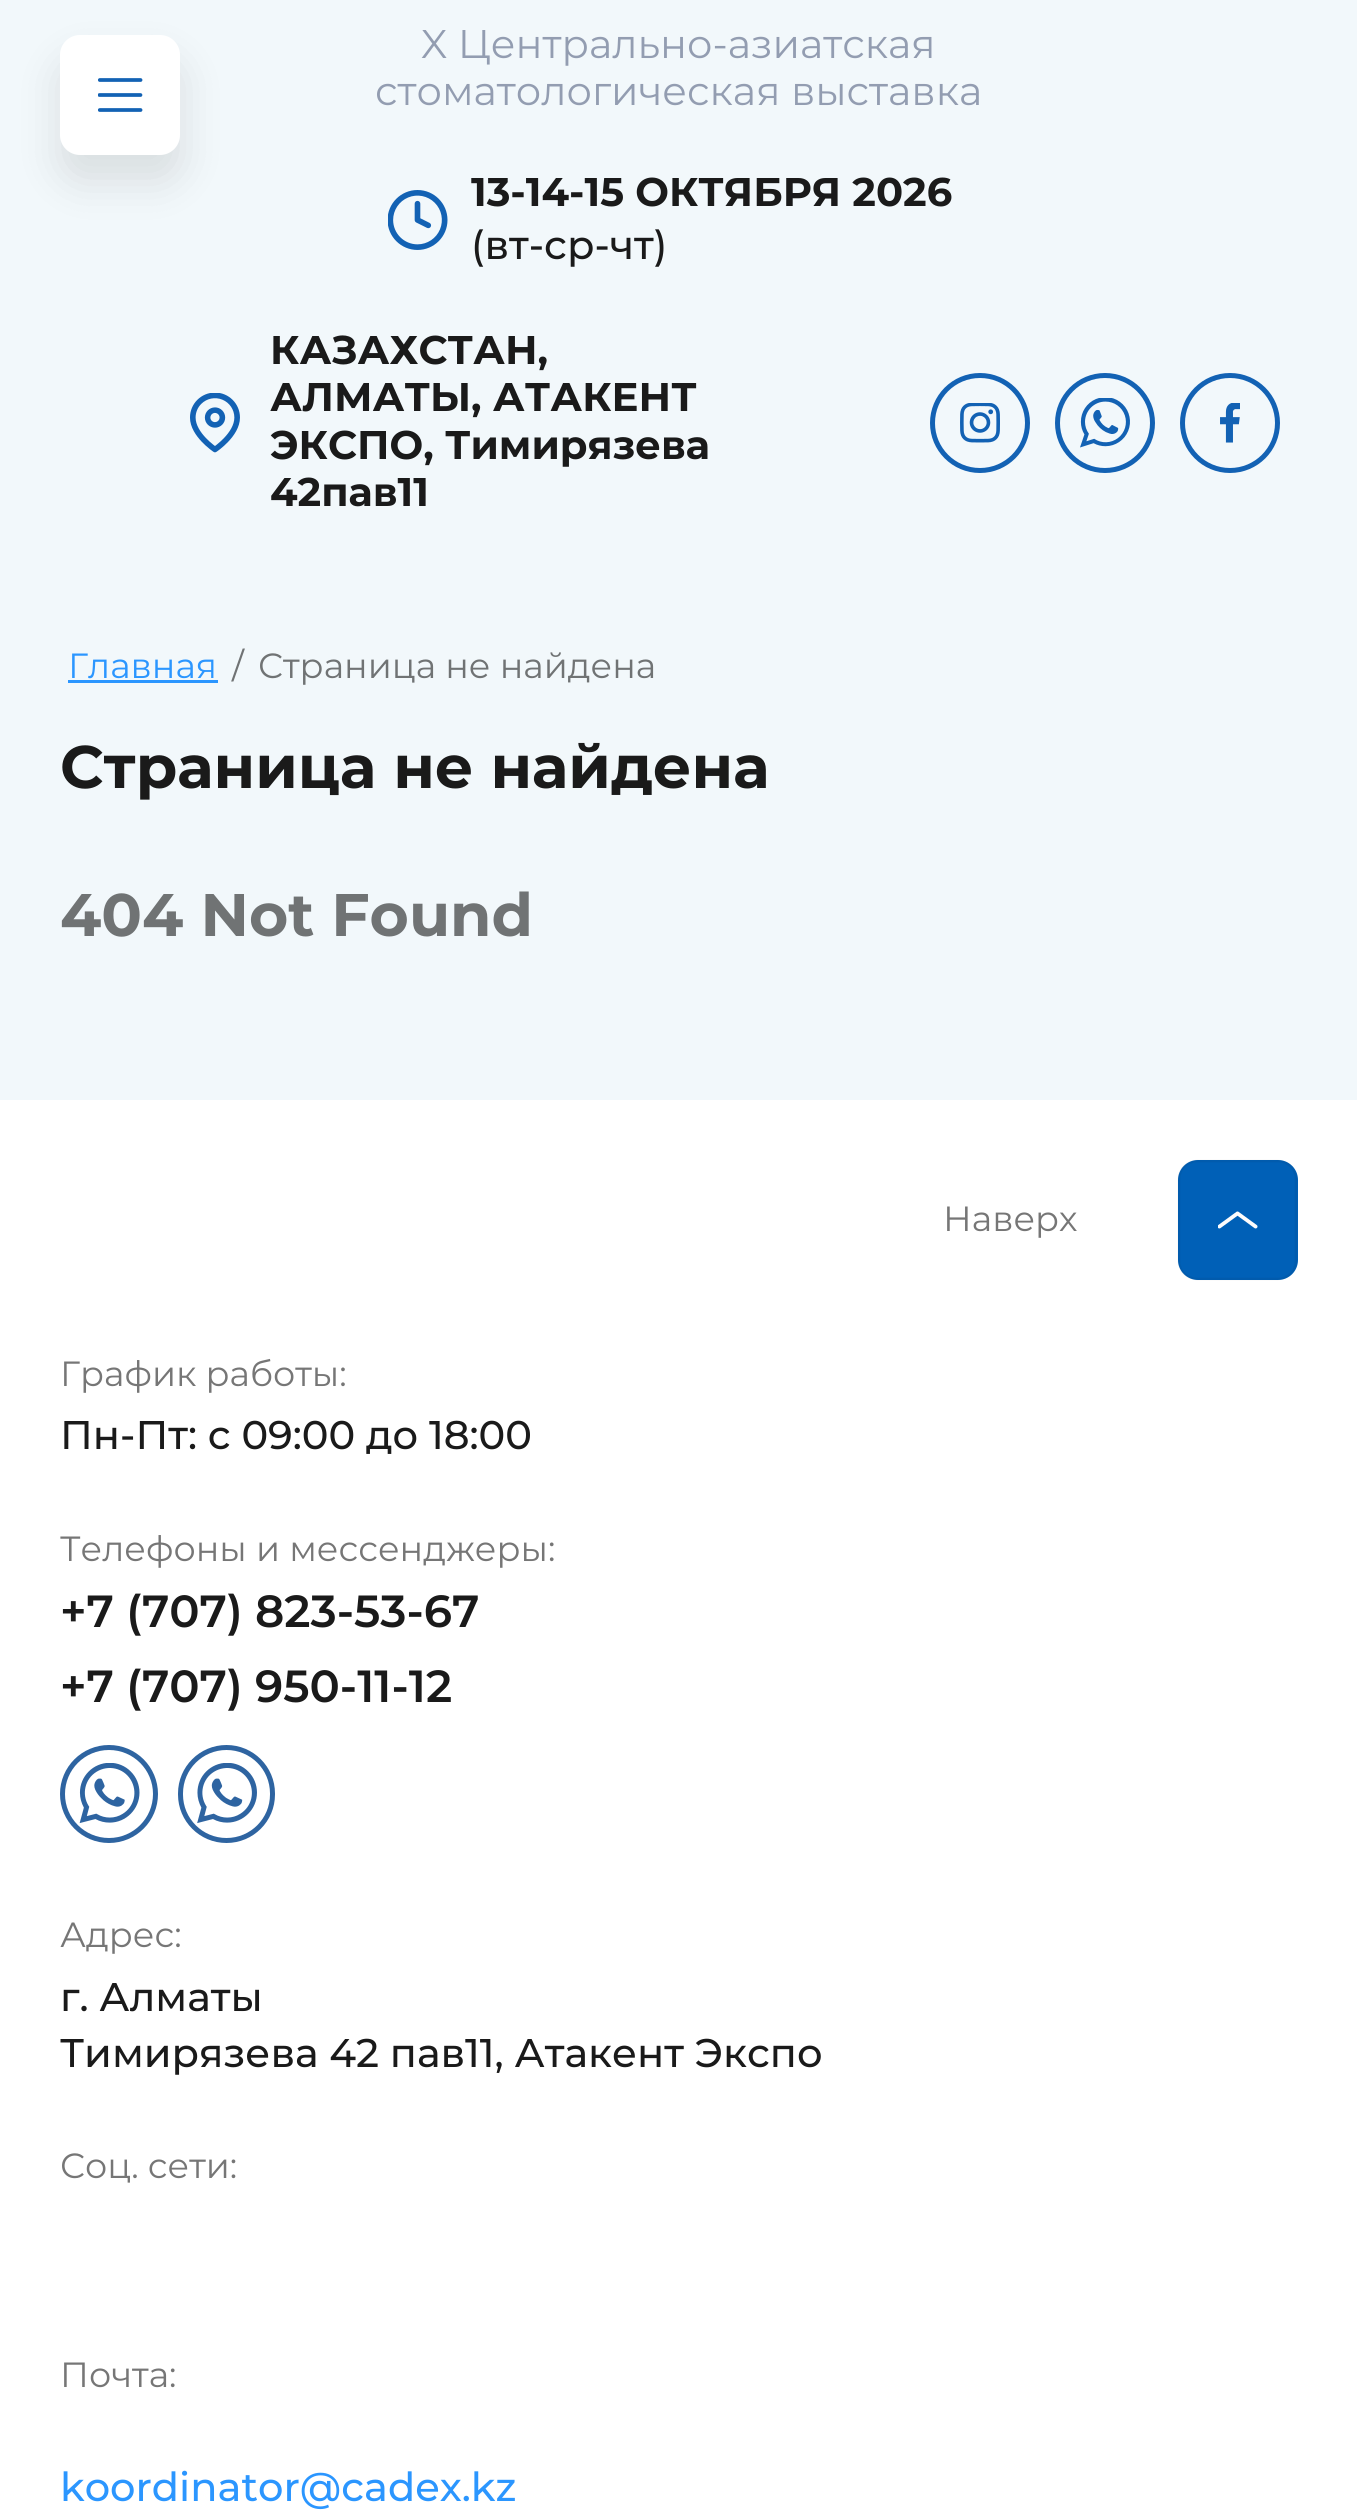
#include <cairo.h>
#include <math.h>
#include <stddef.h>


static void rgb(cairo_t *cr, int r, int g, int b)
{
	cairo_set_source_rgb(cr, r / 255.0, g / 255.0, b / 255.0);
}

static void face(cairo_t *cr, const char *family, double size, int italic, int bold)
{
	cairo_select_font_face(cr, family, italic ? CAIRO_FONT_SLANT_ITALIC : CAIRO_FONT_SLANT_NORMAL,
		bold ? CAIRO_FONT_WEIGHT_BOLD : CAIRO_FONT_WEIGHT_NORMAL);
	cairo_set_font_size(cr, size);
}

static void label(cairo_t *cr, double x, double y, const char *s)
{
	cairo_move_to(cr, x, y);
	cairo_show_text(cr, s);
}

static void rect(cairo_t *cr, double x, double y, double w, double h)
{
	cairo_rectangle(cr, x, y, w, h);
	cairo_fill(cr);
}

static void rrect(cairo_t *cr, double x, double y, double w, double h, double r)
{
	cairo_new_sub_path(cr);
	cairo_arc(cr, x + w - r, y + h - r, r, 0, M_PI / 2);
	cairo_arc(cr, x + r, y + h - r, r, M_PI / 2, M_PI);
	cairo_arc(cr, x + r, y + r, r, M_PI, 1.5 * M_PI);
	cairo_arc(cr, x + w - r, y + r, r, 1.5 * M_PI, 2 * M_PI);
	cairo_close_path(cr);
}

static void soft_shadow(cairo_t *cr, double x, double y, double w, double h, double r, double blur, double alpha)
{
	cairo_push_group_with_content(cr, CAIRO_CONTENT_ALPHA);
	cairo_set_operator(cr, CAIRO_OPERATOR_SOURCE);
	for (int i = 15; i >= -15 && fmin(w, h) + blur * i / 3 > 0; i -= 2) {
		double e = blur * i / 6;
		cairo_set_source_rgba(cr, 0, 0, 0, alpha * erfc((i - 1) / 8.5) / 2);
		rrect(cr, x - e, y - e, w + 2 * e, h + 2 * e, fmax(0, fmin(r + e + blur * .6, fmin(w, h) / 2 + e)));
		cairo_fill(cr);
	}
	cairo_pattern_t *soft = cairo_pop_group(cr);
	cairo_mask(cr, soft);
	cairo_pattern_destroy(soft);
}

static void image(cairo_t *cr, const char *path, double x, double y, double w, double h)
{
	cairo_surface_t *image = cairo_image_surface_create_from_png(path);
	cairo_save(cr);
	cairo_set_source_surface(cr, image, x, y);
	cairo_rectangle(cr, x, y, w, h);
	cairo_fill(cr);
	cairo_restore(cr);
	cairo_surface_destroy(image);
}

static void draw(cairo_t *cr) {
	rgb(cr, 242, 248, 251);
	cairo_paint(cr);
	rgb(cr, 0, 0, 0);
	soft_shadow(cr, 58, 58, 125, 125, 23, 20, 0.1);
	rgb(cr, 255, 255, 255);
	rrect(cr, 60, 35, 120, 120, 20);
	cairo_fill(cr);
	image(cr, "image0.png", 98, 78, 45, 34);
	face(cr, "Montserrat", 40, 0, 0);
	rgb(cr, 147, 157, 177);
	label(cr, 421, 58, "X Центрально-азиатская");
	label(cr, 375, 105, "стоматологическая выставка");
	image(cr, "image1.png", 388, 190, 60, 60);
	face(cr, "Montserrat", 40, 0, 1);
	rgb(cr, 26, 26, 26);
	label(cr, 471, 206, "13-14-15 ОКТЯБРЯ 2026");
	face(cr, "Montserrat Medium", 40, 0, 0);
	label(cr, 471, 259, "(вт-ср-чт)");
	image(cr, "image2.png", 190, 393, 50, 60);
	face(cr, "Montserrat", 40, 0, 1);
	label(cr, 270, 364, "КАЗАХСТАН,");
	label(cr, 270, 411, "АЛМАТЫ, АТАКЕНТ");
	label(cr, 270, 459, "ЭКСПО, Тимирязева");
	label(cr, 270, 506, "42пав11");
	cairo_new_path(cr);
	cairo_arc(cr, 980, 423, 47.5, 0, 2 * M_PI);
	rgb(cr, 19, 98, 180);
	cairo_set_line_width(cr, 5);
	cairo_stroke(cr);
	image(cr, "image3.png", 960, 403, 40, 40);
	cairo_arc(cr, 1105, 423, 47.5, 0, 2 * M_PI);
	cairo_stroke(cr);
	image(cr, "image4.png", 1080, 398, 50, 50);
	cairo_arc(cr, 1230, 423, 47.5, 0, 2 * M_PI);
	cairo_stroke(cr);
	image(cr, "image5.png", 1220, 403, 20, 40);
	face(cr, "Montserrat", 35, 0, 0);
	rgb(cr, 43, 150, 255);
	label(cr, 68, 678, "Главная");
	rect(cr, 68, 680, 150, 3);
	rgb(cr, 112, 115, 116);
	label(cr, 232, 678, "/");
	label(cr, 258, 678, "Страница не найдена");
	face(cr, "Montserrat", 60, 0, 1);
	rgb(cr, 26, 26, 26);
	label(cr, 60, 788, "Страница не найдена");
	rgb(cr, 112, 115, 116);
	label(cr, 60, 936, "404 Not Found");
	rgb(cr, 255, 255, 255);
	rect(cr, 0, 1100, 1357, 1418);
	face(cr, "Montserrat", 35, 0, 0);
	rgb(cr, 118, 118, 118);
	label(cr, 943, 1231, "Наверх");
	rgb(cr, 0, 96, 183);
	rrect(cr, 1178, 1160, 120, 120, 20);
	cairo_fill(cr);
	cairo_new_path(cr);
	cairo_move_to(cr, 1291, 1166.5);
	cairo_curve_to(cr, 1294.5, 1170.5, 1296, 1175, 1296, 1180);
	cairo_line_to(cr, 1296, 1260);
	cairo_curve_to(cr, 1296, 1265, 1294.5, 1269.5, 1291, 1273.5);
	cairo_curve_to(cr, 1287, 1277, 1282.5, 1279, 1277.5, 1279);
	cairo_line_to(cr, 1197.5, 1279);
	cairo_curve_to(cr, 1192.5, 1279, 1188, 1277, 1184, 1273.5);
	cairo_set_source_rgba(cr, 0.067, 0.067, 0.067, 0.06);
	cairo_set_line_width(cr, 2.5);
	cairo_stroke(cr);
	cairo_new_path(cr);
	cairo_move_to(cr, 1184, 1273.5);
	cairo_curve_to(cr, 1180.5, 1269.5, 1179, 1265, 1179, 1260);
	cairo_line_to(cr, 1179, 1180);
	cairo_curve_to(cr, 1179, 1175, 1180.5, 1170.5, 1184, 1166.5);
	cairo_curve_to(cr, 1188, 1163, 1192.5, 1161, 1197.5, 1161);
	cairo_line_to(cr, 1277.5, 1161);
	cairo_curve_to(cr, 1282.5, 1161, 1287, 1163, 1291, 1166.5);
	cairo_set_source_rgba(cr, 0.102, 0.102, 0.102, 0.06);
	cairo_stroke(cr);
	image(cr, "image6.png", 1218, 1211, 40, 18);
	rgb(cr, 118, 118, 118);
	label(cr, 60, 1386, "График работы:");
	face(cr, "Montserrat Medium", 40, 0, 0);
	rgb(cr, 26, 26, 26);
	label(cr, 60, 1449, "Пн-Пт: с 09:00 до 18:00");
	face(cr, "Montserrat", 35, 0, 0);
	rgb(cr, 118, 118, 118);
	label(cr, 60, 1561, "Телефоны и мессенджеры:");
	face(cr, "Montserrat SemiBold", 45, 0, 0);
	rgb(cr, 26, 26, 26);
	label(cr, 60, 1627, "+7 (707) 823-53-67");
	label(cr, 60, 1702, "+7 (707) 950-11-12");
	cairo_new_path(cr);
	cairo_arc(cr, 109, 1794, 46.5, 0, 2 * M_PI);
	rgb(cr, 46, 100, 161);
	cairo_set_line_width(cr, 5);
	cairo_stroke(cr);
	image(cr, "image7.png", 79, 1763, 61, 61);
	rrect(cr, 180.5, 1747.5, 92, 93, 46);
	cairo_stroke(cr);
	image(cr, "image8.png", 197, 1763, 60, 61);
	face(cr, "Montserrat", 35, 0, 0);
	rgb(cr, 118, 118, 118);
	label(cr, 60, 1947, "Адрес:");
	face(cr, "Montserrat Medium", 40, 0, 0);
	rgb(cr, 26, 26, 26);
	label(cr, 60, 2011, "г. Алматы");
	label(cr, 60, 2067, "Тимирязева 42 пав11, Атакент Экспо");
	face(cr, "Montserrat", 35, 0, 0);
	rgb(cr, 118, 118, 118);
	label(cr, 60, 2178, "Соц. сети:");
	label(cr, 60, 2387, "Почта:");
	face(cr, "Montserrat Medium", 40, 0, 0);
	rgb(cr, 43, 150, 255);
	label(cr, 60, 2501, "koordinator@cadex.kz");
}

int main(void) {
	cairo_surface_t *surface = cairo_image_surface_create(CAIRO_FORMAT_RGB24, 1357, 2518);
	cairo_t *cr = cairo_create(surface);
	cairo_font_options_t *options = cairo_font_options_create();
	cairo_font_options_set_hint_metrics(options, CAIRO_HINT_METRICS_OFF);
	cairo_font_options_set_hint_style(options, CAIRO_HINT_STYLE_NONE);
	cairo_set_font_options(cr, options);
	cairo_set_miter_limit(cr, 4);
	draw(cr);
	cairo_surface_write_to_png(surface, "render.png");
	cairo_font_options_destroy(options);
	cairo_destroy(cr);
	cairo_surface_destroy(surface);
	return 0;
}
